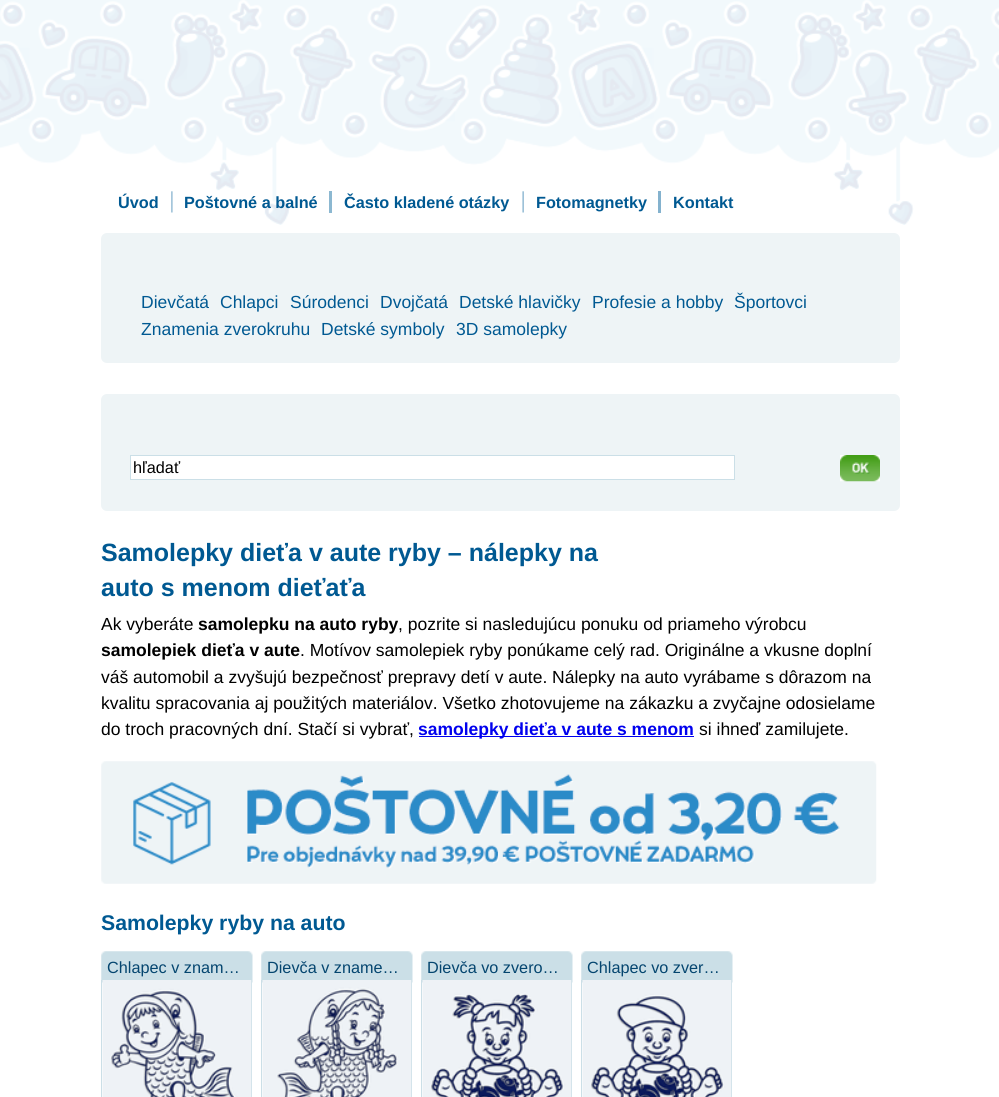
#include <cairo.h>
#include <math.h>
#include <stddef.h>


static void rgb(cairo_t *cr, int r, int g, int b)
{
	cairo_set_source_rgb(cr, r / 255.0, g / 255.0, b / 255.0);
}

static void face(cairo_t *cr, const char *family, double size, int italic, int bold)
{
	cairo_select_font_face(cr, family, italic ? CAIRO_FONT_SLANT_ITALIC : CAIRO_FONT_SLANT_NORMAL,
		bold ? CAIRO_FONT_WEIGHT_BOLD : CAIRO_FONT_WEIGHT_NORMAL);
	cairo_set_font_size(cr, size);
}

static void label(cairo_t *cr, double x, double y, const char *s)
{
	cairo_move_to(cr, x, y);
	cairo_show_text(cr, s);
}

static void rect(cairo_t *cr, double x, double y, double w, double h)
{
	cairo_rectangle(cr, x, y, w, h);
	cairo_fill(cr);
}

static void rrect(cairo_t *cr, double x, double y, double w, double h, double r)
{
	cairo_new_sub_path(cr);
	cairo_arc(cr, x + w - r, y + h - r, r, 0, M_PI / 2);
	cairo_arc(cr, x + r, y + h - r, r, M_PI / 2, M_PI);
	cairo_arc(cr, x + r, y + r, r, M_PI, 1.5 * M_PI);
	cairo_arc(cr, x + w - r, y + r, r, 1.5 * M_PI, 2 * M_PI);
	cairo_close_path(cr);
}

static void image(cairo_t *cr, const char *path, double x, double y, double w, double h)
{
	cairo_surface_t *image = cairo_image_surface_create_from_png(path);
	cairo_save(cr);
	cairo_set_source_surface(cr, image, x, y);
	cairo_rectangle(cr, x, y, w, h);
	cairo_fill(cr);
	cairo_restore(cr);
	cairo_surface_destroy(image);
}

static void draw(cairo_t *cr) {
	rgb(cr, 255, 255, 255);
	cairo_paint(cr);
	image(cr, "image0.png", 0, 0, 999, 225);
	face(cr, "Liberation Sans", 16.25, 0, 1);
	rgb(cr, 0, 89, 146);
	label(cr, 118, 208, "Úvod");
	image(cr, "image1.png", 171, 191, 2, 22);
	label(cr, 184, 208, "Poštovné a balné");
	rgb(cr, 140, 184, 209);
	rect(cr, 329, 191, 3, 22);
	rgb(cr, 0, 89, 146);
	label(cr, 344, 208, "Často kladené otázky");
	image(cr, "image2.png", 522, 191, 2, 22);
	label(cr, 536, 208, "Fotomagnetky");
	rgb(cr, 132, 178, 206);
	rect(cr, 658, 191, 3, 22);
	rgb(cr, 0, 89, 146);
	label(cr, 673, 208, "Kontakt");
	rgb(cr, 238, 244, 246);
	rrect(cr, 101, 233, 799, 130, 6);
	cairo_fill(cr);
	face(cr, "Liberation Sans", 17.5, 0, 0);
	rgb(cr, 0, 89, 146);
	label(cr, 141, 308, "Dievčatá");
	label(cr, 220, 308, "Chlapci");
	label(cr, 290, 308, "Súrodenci");
	label(cr, 380, 308, "Dvojčatá");
	label(cr, 459, 308, "Detské hlavičky");
	label(cr, 592, 308, "Profesie a hobby");
	label(cr, 734, 308, "Športovci");
	label(cr, 141, 335, "Znamenia zverokruhu");
	label(cr, 321, 335, "Detské symboly");
	label(cr, 456, 335, "3D samolepky");
	rgb(cr, 238, 244, 246);
	rrect(cr, 101, 394, 799, 117, 6);
	cairo_fill(cr);
	rgb(cr, 255, 255, 255);
	cairo_rectangle(cr, 130.5, 455.5, 604, 24);
	cairo_fill_preserve(cr);
	rgb(cr, 203, 223, 231);
	cairo_set_line_width(cr, 1);
	cairo_stroke(cr);
	face(cr, "Liberation Sans", 16.25, 0, 0);
	rgb(cr, 0, 0, 0);
	label(cr, 133, 473, "hľadať");
	image(cr, "image3.png", 840, 455, 40, 27);
	face(cr, "Liberation Sans", 25, 0, 1);
	rgb(cr, 0, 89, 146);
	label(cr, 101, 561, "Samolepky dieťa v aute ryby – nálepky na");
	label(cr, 101, 596, "auto s menom dieťaťa");
	face(cr, "Liberation Sans", 17.5, 0, 0);
	rgb(cr, 0, 0, 0);
	label(cr, 101, 630, "Ak vyberáte");
	face(cr, "Liberation Sans", 17.5, 0, 1);
	label(cr, 198, 630, "samolepku na auto ryby");
	face(cr, "Liberation Sans", 17.5, 0, 0);
	label(cr, 398, 630, ", pozrite si nasledujúcu ponuku od priameho výrobcu");
	face(cr, "Liberation Sans", 17.5, 0, 1);
	label(cr, 101, 656, "samolepiek dieťa v aute");
	face(cr, "Liberation Sans", 17.5, 0, 0);
	label(cr, 300, 656, ". Motívov samolepiek ryby ponúkame celý rad. Originálne a vkusne doplní");
	label(cr, 101, 683, "váš automobil a zvyšujú bezpečnosť prepravy detí v aute. Nálepky na auto vyrábame s dôrazom na");
	label(cr, 101, 709, "kvalitu spracovania aj použitých materiálov. Všetko zhotovujeme na zákazku a zvyčajne odosielame");
	label(cr, 101, 735, "do troch pracovných dní. Stačí si vybrať,");
	rgb(cr, 0, 0, 238);
	rect(cr, 419, 736, 275, 1);
	face(cr, "Liberation Sans", 17.5, 0, 1);
	label(cr, 418, 735, "samolepky dieťa v aute s menom");
	face(cr, "Liberation Sans", 17.5, 0, 0);
	rgb(cr, 0, 0, 0);
	label(cr, 699, 735, "si ihneď zamilujete.");
	image(cr, "image4.png", 101, 761, 776, 123);
	face(cr, "Liberation Sans", 21.25, 0, 1);
	rgb(cr, 0, 89, 146);
	label(cr, 101, 930, "Samolepky ryby na auto");
	image(cr, "image5.png", 101, 951, 152, 32);
	face(cr, "Liberation Sans", 16.25, 0, 0);
	rgb(cr, 4, 69, 111);
	label(cr, 107, 973, "Chlapec v znam…");
	rgb(cr, 203, 223, 231);
	rect(cr, 251, 980, 1, 117);
	rect(cr, 101, 980, 1, 117);
	image(cr, "image6.png", 102, 980, 150, 117);
	image(cr, "image5.png", 261, 951, 152, 32);
	rgb(cr, 4, 69, 111);
	label(cr, 267, 973, "Dievča v zname…");
	rgb(cr, 203, 223, 231);
	rect(cr, 411, 980, 1, 117);
	rect(cr, 261, 980, 1, 117);
	image(cr, "image7.png", 262, 980, 150, 117);
	image(cr, "image5.png", 421, 951, 152, 32);
	rgb(cr, 4, 69, 111);
	label(cr, 427, 973, "Dievča vo zvero…");
	rgb(cr, 203, 223, 231);
	rect(cr, 571, 980, 1, 117);
	rect(cr, 421, 980, 1, 117);
	image(cr, "image8.png", 422, 980, 150, 117);
	image(cr, "image5.png", 581, 951, 152, 32);
	rgb(cr, 4, 69, 111);
	label(cr, 587, 973, "Chlapec vo zver…");
	rgb(cr, 203, 223, 231);
	rect(cr, 731, 980, 1, 117);
	rect(cr, 581, 980, 1, 117);
	image(cr, "image9.png", 582, 980, 150, 117);
}

int main(void) {
	cairo_surface_t *surface = cairo_image_surface_create(CAIRO_FORMAT_RGB24, 999, 1097);
	cairo_t *cr = cairo_create(surface);
	cairo_font_options_t *options = cairo_font_options_create();
	cairo_font_options_set_hint_metrics(options, CAIRO_HINT_METRICS_OFF);
	cairo_font_options_set_hint_style(options, CAIRO_HINT_STYLE_NONE);
	cairo_set_font_options(cr, options);
	cairo_set_miter_limit(cr, 4);
	draw(cr);
	cairo_surface_write_to_png(surface, "render.png");
	cairo_font_options_destroy(options);
	cairo_destroy(cr);
	cairo_surface_destroy(surface);
	return 0;
}
